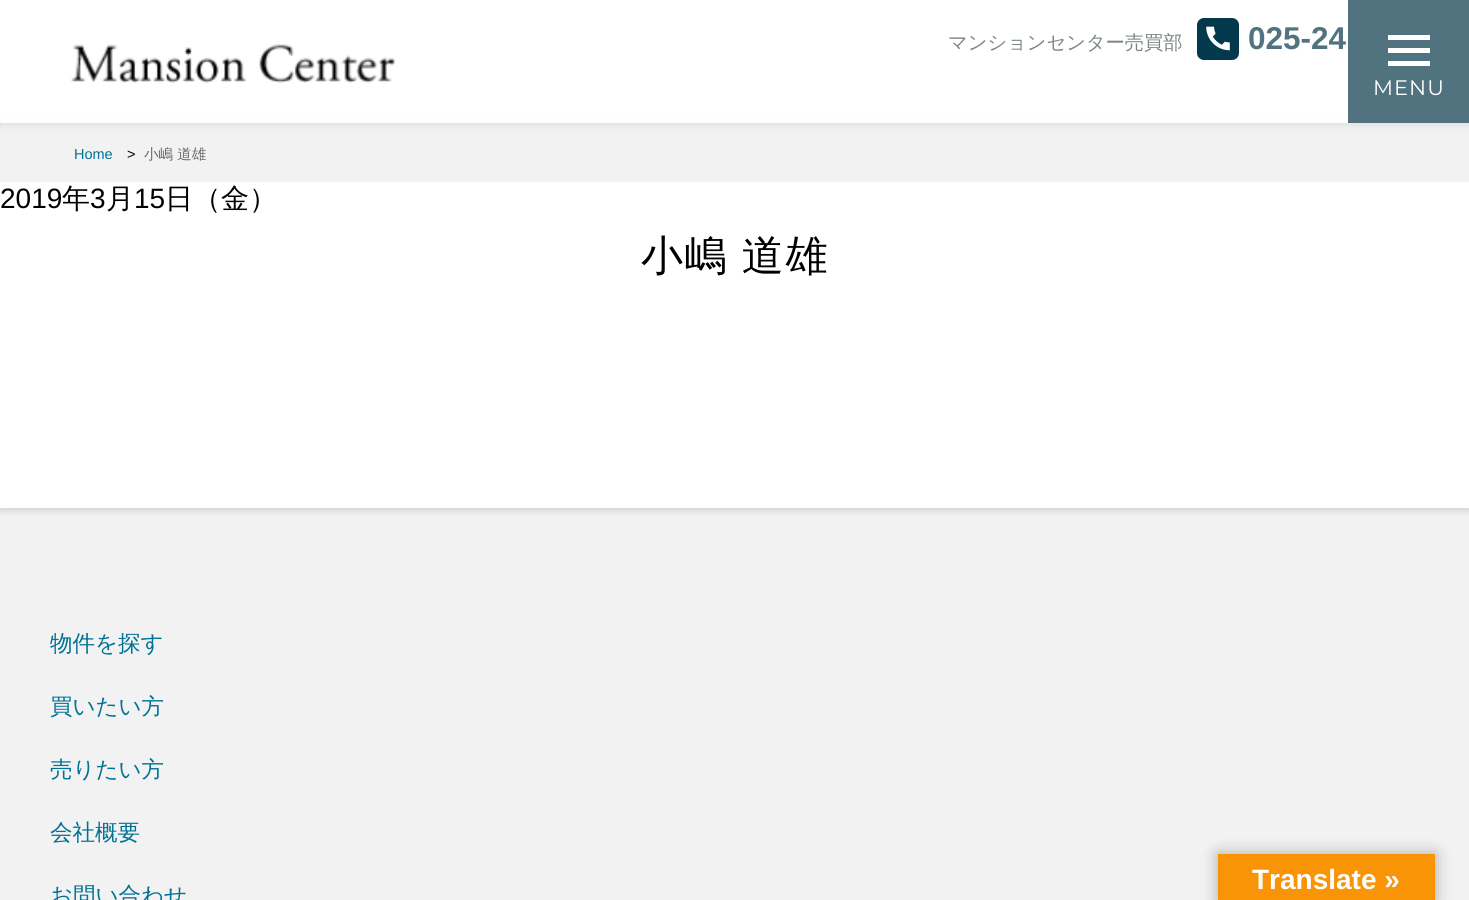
#include <cairo.h>
#include <math.h>
#include <stddef.h>


static void rgb(cairo_t *cr, int r, int g, int b)
{
	cairo_set_source_rgb(cr, r / 255.0, g / 255.0, b / 255.0);
}

static void face(cairo_t *cr, const char *family, double size, int italic, int bold)
{
	cairo_select_font_face(cr, family, italic ? CAIRO_FONT_SLANT_ITALIC : CAIRO_FONT_SLANT_NORMAL,
		bold ? CAIRO_FONT_WEIGHT_BOLD : CAIRO_FONT_WEIGHT_NORMAL);
	cairo_set_font_size(cr, size);
}

static void label(cairo_t *cr, double x, double y, const char *s)
{
	cairo_move_to(cr, x, y);
	cairo_show_text(cr, s);
}

static void tracked(cairo_t *cr, double x, double y, const char *s, double letter, double word)
{
	cairo_move_to(cr, x, y);
	while (*s) {
		char ch[5] = {0};
		int n = 0;
		do ch[n++] = *s++; while ((*s & 0xC0) == 0x80);
		cairo_show_text(cr, ch);
		cairo_rel_move_to(cr, letter + word * (*ch == ' '), 0);
	}
}

static void rect(cairo_t *cr, double x, double y, double w, double h)
{
	cairo_rectangle(cr, x, y, w, h);
	cairo_fill(cr);
}

static void rrect(cairo_t *cr, double x, double y, double w, double h, double r)
{
	cairo_new_sub_path(cr);
	cairo_arc(cr, x + w - r, y + h - r, r, 0, M_PI / 2);
	cairo_arc(cr, x + r, y + h - r, r, M_PI / 2, M_PI);
	cairo_arc(cr, x + r, y + r, r, M_PI, 1.5 * M_PI);
	cairo_arc(cr, x + w - r, y + r, r, 1.5 * M_PI, 2 * M_PI);
	cairo_close_path(cr);
}

static void soft_shadow(cairo_t *cr, double x, double y, double w, double h, double r, double blur, double alpha)
{
	cairo_push_group_with_content(cr, CAIRO_CONTENT_ALPHA);
	cairo_set_operator(cr, CAIRO_OPERATOR_SOURCE);
	for (int i = 15; i >= -15 && fmin(w, h) + blur * i / 3 > 0; i -= 2) {
		double e = blur * i / 6;
		cairo_set_source_rgba(cr, 0, 0, 0, alpha * erfc((i - 1) / 8.5) / 2);
		rrect(cr, x - e, y - e, w + 2 * e, h + 2 * e, fmax(0, fmin(r + e + blur * .6, fmin(w, h) / 2 + e)));
		cairo_fill(cr);
	}
	cairo_pattern_t *soft = cairo_pop_group(cr);
	cairo_mask(cr, soft);
	cairo_pattern_destroy(soft);
}

static void image(cairo_t *cr, const char *path, double x, double y, double w, double h)
{
	cairo_surface_t *image = cairo_image_surface_create_from_png(path);
	cairo_save(cr);
	cairo_set_source_surface(cr, image, x, y);
	cairo_rectangle(cr, x, y, w, h);
	cairo_fill(cr);
	cairo_restore(cr);
	cairo_surface_destroy(image);
}

static void draw(cairo_t *cr) {
	rgb(cr, 255, 255, 255);
	cairo_paint(cr);
	cairo_save(cr);
	cairo_set_fill_rule(cr, CAIRO_FILL_RULE_EVEN_ODD);
	cairo_new_path(cr);
	cairo_move_to(cr, 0, 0);
	cairo_line_to(cr, 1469, 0);
	cairo_line_to(cr, 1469, 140);
	cairo_line_to(cr, 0, 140);
	cairo_close_path(cr);
	cairo_move_to(cr, 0, 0);
	cairo_line_to(cr, 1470, 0);
	cairo_line_to(cr, 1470, 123);
	cairo_line_to(cr, 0, 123);
	cairo_close_path(cr);
	cairo_clip(cr);
	rgb(cr, 0, 0, 0);
	soft_shadow(cr, 0, 2, 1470, 122, 0, 5, 0.09);
	cairo_restore(cr);
	rgb(cr, 242, 242, 242);
	rect(cr, 0, 508, 1469, 392);
	rgb(cr, 0, 0, 0);
	soft_shadow(cr, 0, 124, 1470, 385, 0, 4.5, 0.1);
	rgb(cr, 255, 255, 255);
	rect(cr, 0, 182, 1469, 326);
	cairo_save(cr);
	cairo_set_fill_rule(cr, CAIRO_FILL_RULE_EVEN_ODD);
	cairo_new_path(cr);
	cairo_move_to(cr, 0, 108);
	cairo_line_to(cr, 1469, 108);
	cairo_line_to(cr, 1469, 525);
	cairo_line_to(cr, 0, 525);
	cairo_close_path(cr);
	cairo_move_to(cr, 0, 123);
	cairo_line_to(cr, 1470, 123);
	cairo_line_to(cr, 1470, 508);
	cairo_line_to(cr, 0, 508);
	cairo_close_path(cr);
	cairo_clip(cr);
	rgb(cr, 0, 0, 0);
	soft_shadow(cr, 0, 124, 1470, 385, 0, 5, 0.09);
	cairo_restore(cr);
	rgb(cr, 242, 242, 242);
	rect(cr, 1, 123, 1468, 59);
	cairo_save(cr);
	cairo_set_fill_rule(cr, CAIRO_FILL_RULE_EVEN_ODD);
	cairo_new_path(cr);
	cairo_move_to(cr, 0, 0);
	cairo_line_to(cr, 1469, 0);
	cairo_line_to(cr, 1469, 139);
	cairo_line_to(cr, 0, 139);
	cairo_close_path(cr);
	cairo_move_to(cr, 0, 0);
	cairo_line_to(cr, 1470, 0);
	cairo_line_to(cr, 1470, 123);
	cairo_line_to(cr, 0, 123);
	cairo_close_path(cr);
	cairo_clip(cr);
	rgb(cr, 0, 0, 0);
	soft_shadow(cr, 0, 2, 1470, 122, 0, 4.5, 0.1);
	cairo_restore(cr);
	cairo_set_source_rgba(cr, 1, 1, 1, 0.93);
	rect(cr, 0, 117, 1348, 6);
	face(cr, "WenQuanYi Zen Hei Medium", 19.25, 0, 0);
	rgb(cr, 122, 134, 135);
	label(cr, 948, 49, "マンションセンター売買部");
	rgb(cr, 4, 56, 76);
	rrect(cr, 1197, 18, 42, 42, 7);
	cairo_fill(cr);
	image(cr, "image0.png", 1206, 26, 24, 25);
	face(cr, "Liberation Sans", 31.5, 0, 1);
	rgb(cr, 81, 115, 128);
	label(cr, 1248, 49, "025-24");
	image(cr, "image1.png", 70, 44, 325, 39);
	rect(cr, 1348, 0, 121, 123);
	rgb(cr, 255, 255, 255);
	cairo_new_path(cr);
	cairo_move_to(cr, 1388, 66);
	cairo_line_to(cr, 1388, 61);
	cairo_line_to(cr, 1430, 61);
	cairo_line_to(cr, 1430, 66);
	cairo_close_path(cr);
	cairo_move_to(cr, 1388, 35);
	cairo_line_to(cr, 1430, 35);
	cairo_line_to(cr, 1430, 40);
	cairo_line_to(cr, 1388, 40);
	cairo_close_path(cr);
	cairo_move_to(cr, 1388, 53);
	cairo_line_to(cr, 1388, 48);
	cairo_line_to(cr, 1430, 48);
	cairo_line_to(cr, 1430, 53);
	cairo_close_path(cr);
	cairo_fill(cr);
	face(cr, "Montserrat", 21, 0, 0);
	tracked(cr, 1373, 95, "MENU", 1, 0);
	face(cr, "Liberation Sans", 14.5, 0, 0);
	rgb(cr, 0, 114, 149);
	label(cr, 74, 159, "Home");
	rgb(cr, 0, 0, 0);
	label(cr, 127, 159, ">");
	face(cr, "WenQuanYi Zen Hei Medium", 14.5, 0, 0);
	rgb(cr, 104, 104, 104);
	label(cr, 144, 159, "小嶋 道雄");
	face(cr, "Liberation Sans", 28, 0, 0);
	rgb(cr, 0, 0, 0);
	label(cr, 0, 208, "2019");
	face(cr, "WenQuanYi Zen Hei Medium", 28, 0, 0);
	label(cr, 62, 208, "年");
	face(cr, "Liberation Sans", 28, 0, 0);
	label(cr, 90, 208, "3");
	face(cr, "WenQuanYi Zen Hei Medium", 28, 0, 0);
	label(cr, 106, 208, "月");
	face(cr, "Liberation Sans", 28, 0, 0);
	label(cr, 134, 208, "15");
	face(cr, "WenQuanYi Zen Hei Medium", 28, 0, 0);
	label(cr, 165, 208, "日（金）");
	face(cr, "WenQuanYi Zen Hei Medium", 42, 0, 0);
	tracked(cr, 641, 270, "小嶋 道雄", 1.75, -1);
	face(cr, "WenQuanYi Zen Hei Medium", 22.5, 0, 0);
	rgb(cr, 0, 114, 149);
	label(cr, 50, 651, "物件を探す");
	label(cr, 50, 714, "買いたい方");
	label(cr, 50, 777, "売りたい方");
	label(cr, 50, 840, "会社概要");
	label(cr, 50, 903, "お問い合わせ");
	rgb(cr, 0, 0, 0);
	soft_shadow(cr, 1218, 854, 217, 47, 0, 8, 0.3);
	rgb(cr, 248, 148, 6);
	rect(cr, 1218, 854, 217, 46);
	face(cr, "Liberation Sans", 28, 0, 1);
	rgb(cr, 255, 255, 255);
	label(cr, 1252, 889, "Translate »");
}

int main(void) {
	cairo_surface_t *surface = cairo_image_surface_create(CAIRO_FORMAT_RGB24, 1469, 900);
	cairo_t *cr = cairo_create(surface);
	cairo_font_options_t *options = cairo_font_options_create();
	cairo_font_options_set_hint_metrics(options, CAIRO_HINT_METRICS_OFF);
	cairo_font_options_set_hint_style(options, CAIRO_HINT_STYLE_NONE);
	cairo_set_font_options(cr, options);
	cairo_set_miter_limit(cr, 4);
	draw(cr);
	cairo_surface_write_to_png(surface, "render.png");
	cairo_font_options_destroy(options);
	cairo_destroy(cr);
	cairo_surface_destroy(surface);
	return 0;
}
